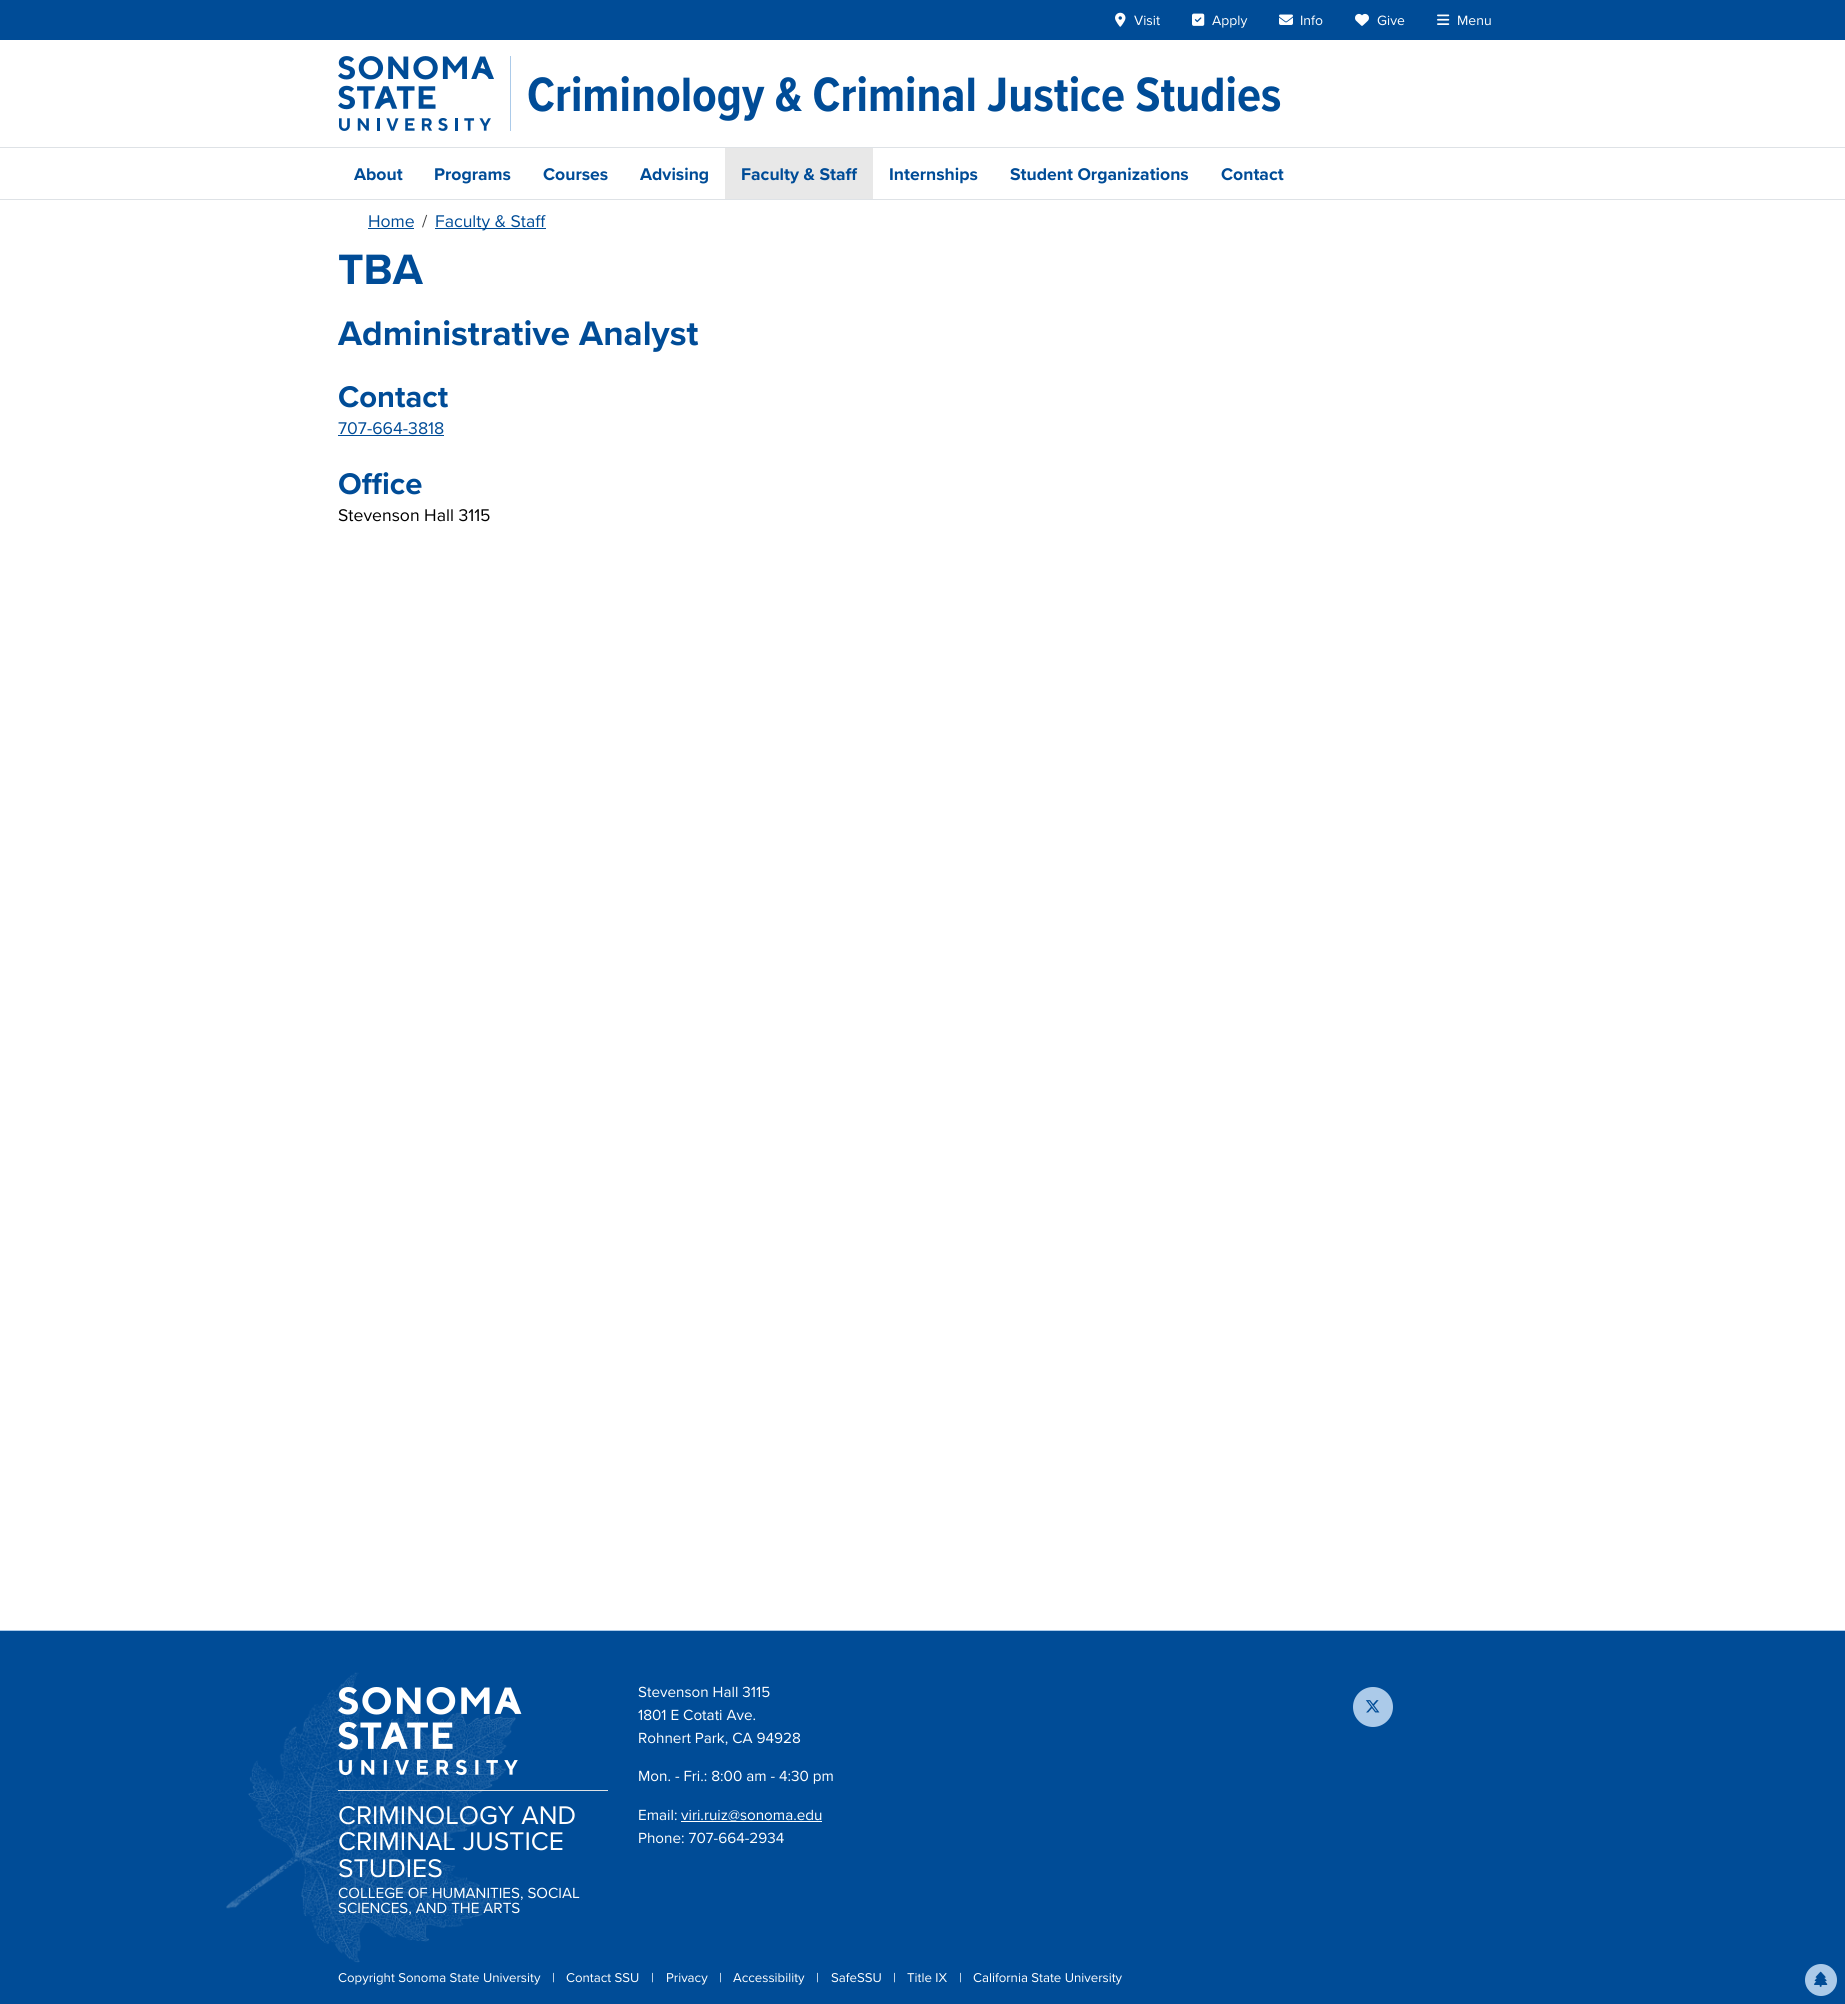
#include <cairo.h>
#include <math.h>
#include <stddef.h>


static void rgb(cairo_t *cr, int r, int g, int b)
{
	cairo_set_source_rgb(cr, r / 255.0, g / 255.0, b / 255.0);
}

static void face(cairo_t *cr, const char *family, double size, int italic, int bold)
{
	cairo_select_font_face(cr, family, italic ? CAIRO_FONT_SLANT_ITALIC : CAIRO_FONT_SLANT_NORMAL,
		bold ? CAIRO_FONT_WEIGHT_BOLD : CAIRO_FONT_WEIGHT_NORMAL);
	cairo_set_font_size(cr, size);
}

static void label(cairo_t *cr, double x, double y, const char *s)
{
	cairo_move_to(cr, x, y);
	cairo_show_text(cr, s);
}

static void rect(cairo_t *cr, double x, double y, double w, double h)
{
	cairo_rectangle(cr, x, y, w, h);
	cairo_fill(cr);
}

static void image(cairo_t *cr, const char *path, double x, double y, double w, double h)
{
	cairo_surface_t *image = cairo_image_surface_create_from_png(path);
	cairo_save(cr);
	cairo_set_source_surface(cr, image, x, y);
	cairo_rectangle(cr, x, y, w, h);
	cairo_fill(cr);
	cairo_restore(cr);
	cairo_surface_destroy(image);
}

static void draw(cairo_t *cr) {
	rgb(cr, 255, 255, 255);
	cairo_paint(cr);
	rgb(cr, 222, 226, 230);
	rect(cr, 0, 199, 1845, 1);
	rgb(cr, 0, 76, 151);
	rect(cr, 0, 0, 1845, 40);
	image(cr, "image0.png", 1115, 12, 11, 15);
	face(cr, "Proxima Nova", 14, 0, 0);
	rgb(cr, 255, 255, 255);
	label(cr, 1134, 25, "Visit");
	image(cr, "image1.png", 1192, 13, 13, 13);
	label(cr, 1212, 25, "Apply");
	image(cr, "image2.png", 1279, 14, 14, 11);
	label(cr, 1300, 25, "Info");
	image(cr, "image3.png", 1355, 13, 14, 13);
	label(cr, 1377, 25, "Give");
	image(cr, "image4.png", 1437, 14, 13, 11);
	label(cr, 1457, 25, "Menu");
	rgb(cr, 171, 202, 233);
	rect(cr, 510, 56, 1, 75);
	image(cr, "image5.png", 338, 56, 156, 75);
	face(cr, "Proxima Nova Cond", 50, 0, 1);
	rgb(cr, 0, 76, 151);
	label(cr, 527, 111, "Criminology & Criminal Justice Studies");
	rgb(cr, 222, 226, 230);
	rect(cr, 0, 147, 1845, 1);
	face(cr, "Proxima Nova", 17.6, 0, 1);
	rgb(cr, 0, 76, 151);
	label(cr, 354, 180, "About");
	label(cr, 434, 180, "Programs");
	label(cr, 543, 180, "Courses");
	label(cr, 640, 180, "Advising");
	rgb(cr, 232, 232, 232);
	rect(cr, 725, 148, 148, 51);
	rgb(cr, 0, 76, 151);
	label(cr, 741, 180, "Faculty & Staff");
	label(cr, 889, 180, "Internships");
	label(cr, 1010, 180, "Student Organizations");
	label(cr, 1221, 180, "Contact");
	face(cr, "Proxima Nova", 17.6, 0, 0);
	label(cr, 368, 227, "Home");
	rect(cr, 368, 228, 46, 1);
	rgb(cr, 64, 64, 64);
	label(cr, 422, 227, "/");
	rgb(cr, 0, 76, 151);
	rect(cr, 435, 228, 111, 1);
	label(cr, 435, 227, "Faculty & Staff");
	face(cr, "Proxima Nova", 44, 0, 1);
	label(cr, 338, 284, "TBA");
	face(cr, "Proxima Nova", 35.25, 0, 1);
	label(cr, 338, 345, "Administrative Analyst");
	face(cr, "Proxima Nova", 31, 0, 1);
	label(cr, 338, 407, "Contact");
	face(cr, "Proxima Nova", 17.6, 0, 0);
	label(cr, 338, 434, "707-664-3818");
	rect(cr, 338, 435, 106, 1);
	face(cr, "Proxima Nova", 31, 0, 1);
	label(cr, 338, 494, "Office");
	face(cr, "Proxima Nova", 17.6, 0, 0);
	rgb(cr, 0, 0, 0);
	label(cr, 338, 521, "Stevenson Hall 3115");
	rgb(cr, 0, 76, 151);
	rect(cr, 0, 1631, 1845, 373);
	rgb(cr, 171, 202, 233);
	rect(cr, 0, 1630, 1845, 1);
	image(cr, "image6.png", 226, 1672, 290, 291);
	face(cr, "Proxima Nova", 15.25, 0, 0);
	rgb(cr, 255, 255, 255);
	label(cr, 638, 1697, "Stevenson Hall 3115");
	label(cr, 638, 1720, "1801 E Cotati Ave.");
	label(cr, 638, 1743, "Rohnert Park, CA 94928");
	label(cr, 638, 1781, "Mon. - Fri.: 8:00 am - 4:30 pm");
	label(cr, 638, 1820, "Email:");
	rect(cr, 681, 1821, 141, 1);
	label(cr, 681, 1820, "viri.ruiz@sonoma.edu");
	label(cr, 638, 1843, "Phone: 707-664-2934");
	rgb(cr, 171, 202, 233);
	cairo_new_path(cr);
	cairo_arc(cr, 1373, 1707, 20, 0, 2 * M_PI);
	cairo_fill(cr);
	image(cr, "image7.png", 1365, 1700, 15, 13);
	image(cr, "image8.png", 338, 1687, 184, 89);
	rgb(cr, 222, 226, 230);
	rect(cr, 338, 1790, 270, 1);
	face(cr, "Proxima Nova", 26.5, 0, 0);
	rgb(cr, 255, 255, 255);
	label(cr, 338, 1824, "CRIMINOLOGY AND");
	label(cr, 338, 1850, "CRIMINAL JUSTICE");
	label(cr, 338, 1877, "STUDIES");
	face(cr, "Proxima Nova", 15.25, 0, 0);
	label(cr, 338, 1898, "COLLEGE OF HUMANITIES, SOCIAL");
	label(cr, 338, 1913, "SCIENCES, AND THE ARTS");
	face(cr, "Proxima Nova", 13.25, 0, 0);
	label(cr, 338, 1982, "Copyright Sonoma State University");
	label(cr, 552, 1982, "|");
	label(cr, 566, 1982, "Contact SSU");
	label(cr, 651, 1982, "|");
	label(cr, 666, 1982, "Privacy");
	label(cr, 719, 1982, "|");
	label(cr, 733, 1982, "Accessibility");
	label(cr, 816, 1982, "|");
	label(cr, 831, 1982, "SafeSSU");
	label(cr, 893, 1982, "|");
	label(cr, 907, 1982, "Title IX");
	label(cr, 959, 1982, "|");
	label(cr, 973, 1982, "California State University");
	rgb(cr, 171, 202, 233);
	cairo_new_path(cr);
	cairo_arc(cr, 1821, 1980, 16, 0, 2 * M_PI);
	cairo_fill(cr);
	image(cr, "image9.png", 1814, 1971, 14, 16);
}

int main(void) {
	cairo_surface_t *surface = cairo_image_surface_create(CAIRO_FORMAT_RGB24, 1845, 2004);
	cairo_t *cr = cairo_create(surface);
	cairo_font_options_t *options = cairo_font_options_create();
	cairo_font_options_set_hint_metrics(options, CAIRO_HINT_METRICS_OFF);
	cairo_font_options_set_hint_style(options, CAIRO_HINT_STYLE_NONE);
	cairo_set_font_options(cr, options);
	cairo_set_miter_limit(cr, 4);
	draw(cr);
	cairo_surface_write_to_png(surface, "render.png");
	cairo_font_options_destroy(options);
	cairo_destroy(cr);
	cairo_surface_destroy(surface);
	return 0;
}
